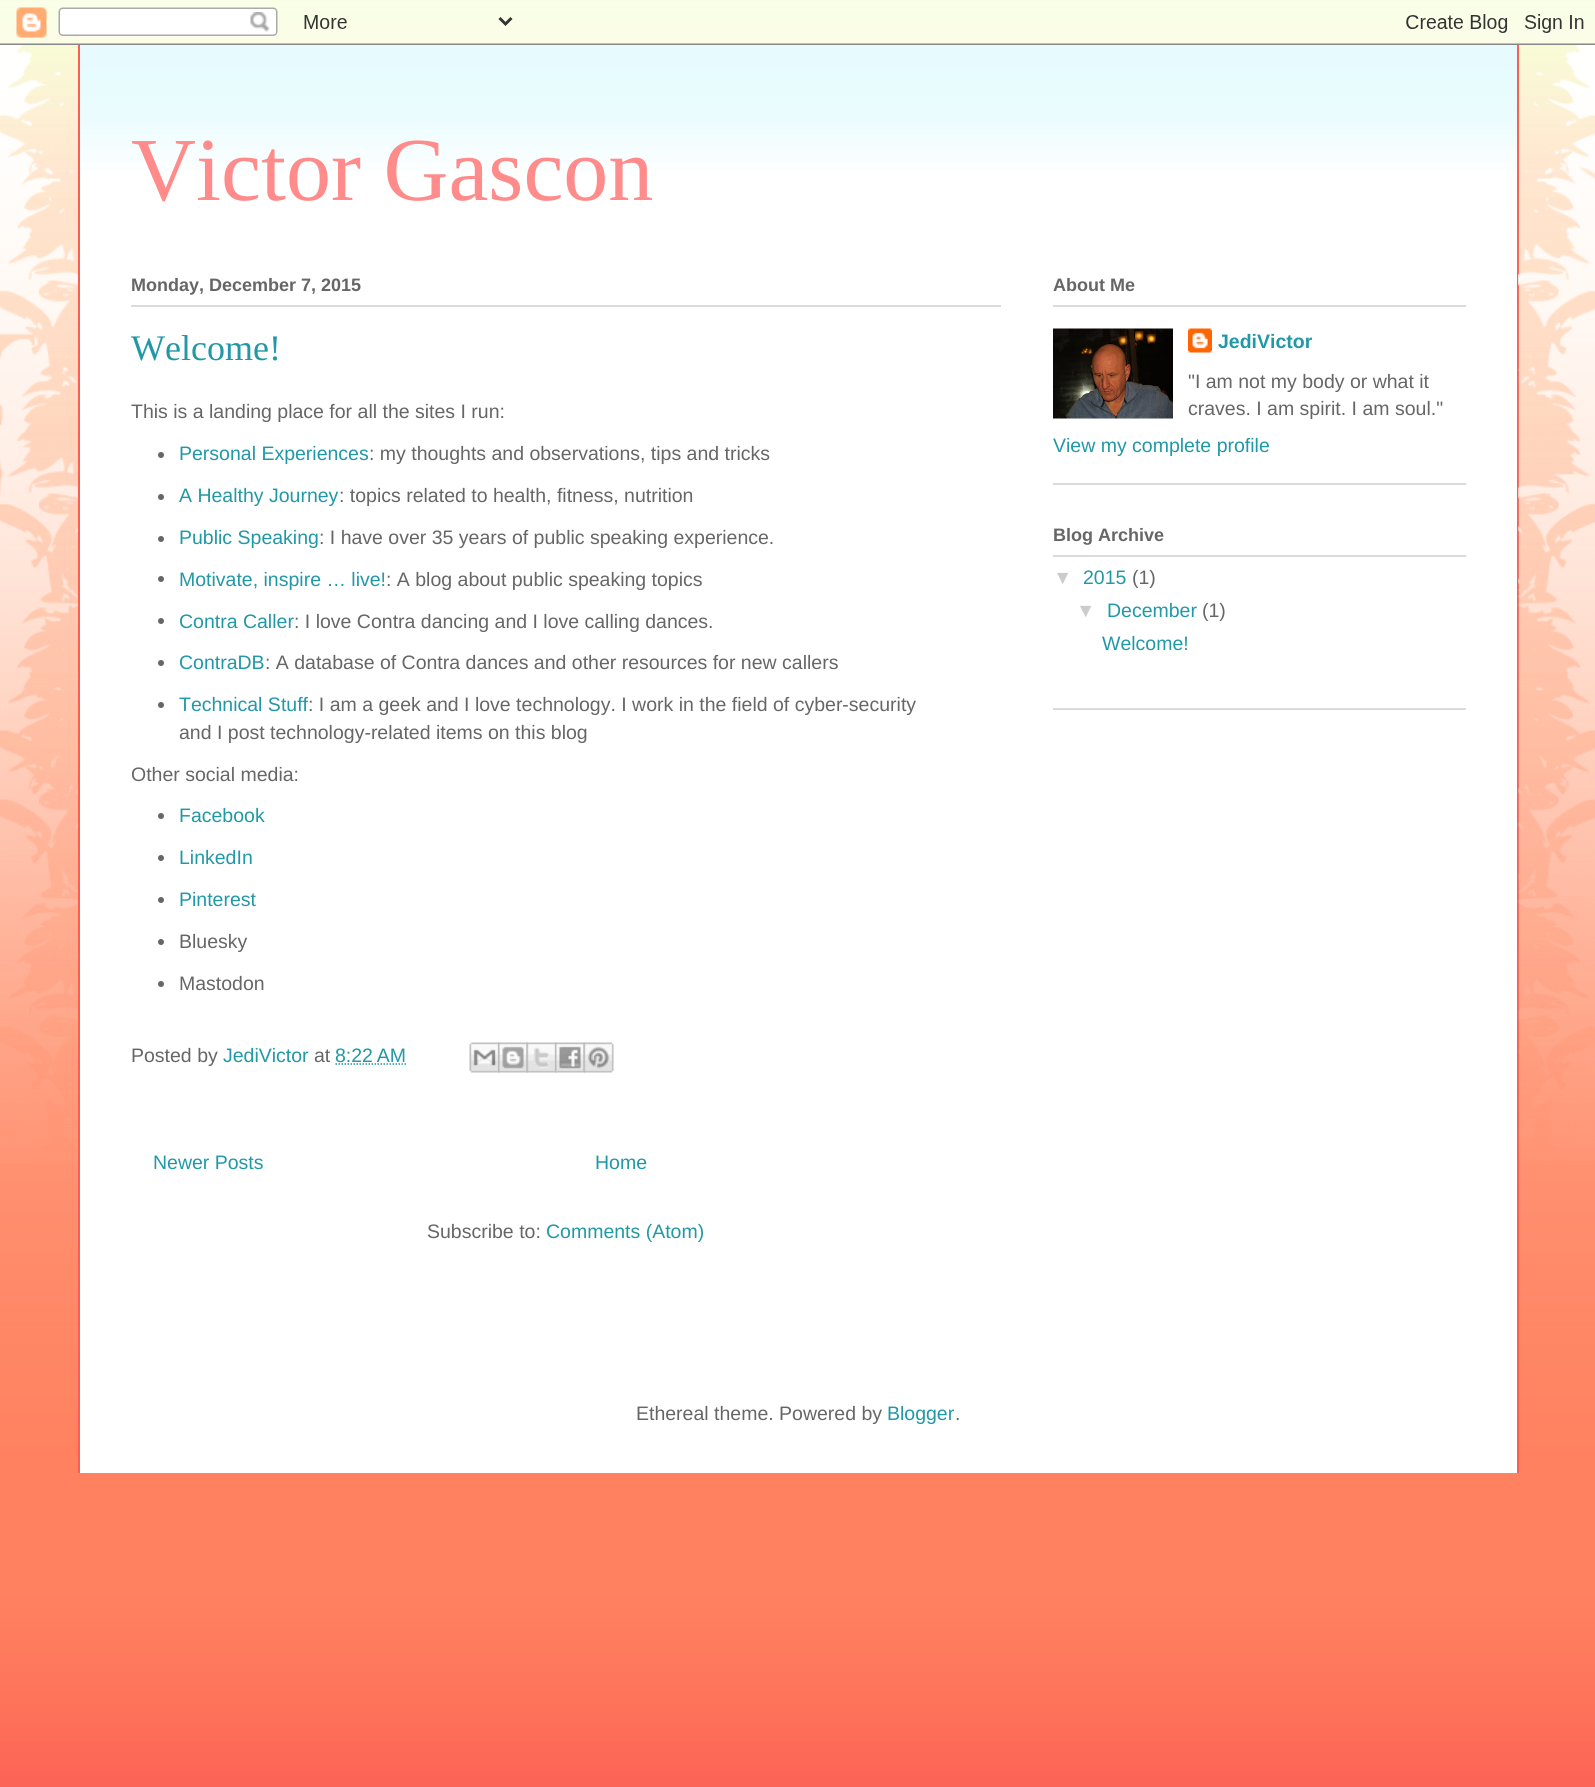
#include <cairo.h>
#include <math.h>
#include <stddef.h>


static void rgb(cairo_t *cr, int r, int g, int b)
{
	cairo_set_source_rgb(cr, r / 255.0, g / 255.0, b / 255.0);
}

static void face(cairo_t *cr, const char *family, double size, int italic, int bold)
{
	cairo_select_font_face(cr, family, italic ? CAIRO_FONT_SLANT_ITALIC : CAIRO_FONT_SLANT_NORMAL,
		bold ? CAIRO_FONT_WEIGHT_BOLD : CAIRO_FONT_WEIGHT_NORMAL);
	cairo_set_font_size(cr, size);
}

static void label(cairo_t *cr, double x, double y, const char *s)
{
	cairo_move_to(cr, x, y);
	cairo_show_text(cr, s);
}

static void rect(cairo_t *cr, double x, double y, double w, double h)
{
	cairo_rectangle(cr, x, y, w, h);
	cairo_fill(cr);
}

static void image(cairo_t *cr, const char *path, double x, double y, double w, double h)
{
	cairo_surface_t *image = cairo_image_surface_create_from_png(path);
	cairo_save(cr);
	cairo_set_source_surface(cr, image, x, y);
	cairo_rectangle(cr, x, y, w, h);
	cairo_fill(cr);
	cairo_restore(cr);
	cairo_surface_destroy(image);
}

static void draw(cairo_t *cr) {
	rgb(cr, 255, 255, 255);
	cairo_paint(cr);
	image(cr, "image0.png", 0, 0, 1595, 1787);
	image(cr, "image1.png", 0, 0, 1595, 45);
	image(cr, "image2.png", 0, 45, 78, 1119);
	rgb(cr, 255, 255, 255);
	rect(cr, 80, 45, 1437, 1428);
	image(cr, "image3.png", 80, 45, 1437, 126);
	rgb(cr, 251, 94, 83);
	rect(cr, 1517, 45, 2, 1428);
	rect(cr, 78, 45, 2, 1428);
	image(cr, "image4.png", 1518, 45, 77, 1116);
	face(cr, "Liberation Serif", 90, 0, 0);
	rgb(cr, 255, 139, 139);
	label(cr, 131, 200, "Victor Gascon");
	rgb(cr, 219, 219, 219);
	rect(cr, 131, 305, 870, 2);
	face(cr, "Liberation Sans", 18, 0, 1);
	rgb(cr, 102, 102, 102);
	label(cr, 131, 291, "Monday, December 7, 2015");
	face(cr, "Liberation Serif", 36, 0, 0);
	rgb(cr, 33, 152, 166);
	label(cr, 131, 360, "Welcome!");
	face(cr, "Liberation Sans", 19.5, 0, 0);
	rgb(cr, 102, 102, 102);
	label(cr, 131, 418, "This is a landing place for all the sites I run:");
	cairo_new_path(cr);
	cairo_arc(cr, 161, 455, 3, 0, 2 * M_PI);
	cairo_fill(cr);
	rgb(cr, 33, 152, 166);
	label(cr, 179, 460, "Personal Experiences");
	rgb(cr, 102, 102, 102);
	label(cr, 369, 460, ": my thoughts and observations, tips and tricks");
	cairo_new_path(cr);
	cairo_arc(cr, 161, 497, 3, 0, 2 * M_PI);
	cairo_fill(cr);
	rgb(cr, 33, 152, 166);
	label(cr, 179, 502, "A Healthy Journey");
	rgb(cr, 102, 102, 102);
	label(cr, 339, 502, ": topics related to health, fitness, nutrition");
	cairo_new_path(cr);
	cairo_arc(cr, 161, 539, 3, 0, 2 * M_PI);
	cairo_fill(cr);
	rgb(cr, 33, 152, 166);
	label(cr, 179, 544, "Public Speaking");
	rgb(cr, 102, 102, 102);
	label(cr, 319, 544, ": I have over 35 years of public speaking experience.");
	cairo_new_path(cr);
	cairo_arc(cr, 161, 579, 3, 0, 2 * M_PI);
	cairo_fill(cr);
	rgb(cr, 33, 152, 166);
	label(cr, 179, 586, "Motivate, inspire … live!");
	rgb(cr, 102, 102, 102);
	label(cr, 386, 586, ": A blog about public speaking topics");
	cairo_new_path(cr);
	cairo_arc(cr, 161, 621, 3, 0, 2 * M_PI);
	cairo_fill(cr);
	rgb(cr, 33, 152, 166);
	label(cr, 179, 628, "Contra Caller");
	rgb(cr, 102, 102, 102);
	label(cr, 294, 628, ": I love Contra dancing and I love calling dances.");
	cairo_new_path(cr);
	cairo_arc(cr, 161, 663, 3, 0, 2 * M_PI);
	cairo_fill(cr);
	rgb(cr, 33, 152, 166);
	label(cr, 179, 669, "ContraDB");
	rgb(cr, 102, 102, 102);
	label(cr, 265, 669, ": A database of Contra dances and other resources for new callers");
	cairo_new_path(cr);
	cairo_arc(cr, 161, 705, 3, 0, 2 * M_PI);
	cairo_fill(cr);
	rgb(cr, 33, 152, 166);
	label(cr, 179, 711, "Technical Stuff");
	rgb(cr, 102, 102, 102);
	label(cr, 308, 711, ": I am a geek and I love technology. I work in the field of cyber-security");
	label(cr, 179, 739, "and I post technology-related items on this blog");
	label(cr, 131, 781, "Other social media:");
	cairo_new_path(cr);
	cairo_arc(cr, 161, 816, 3, 0, 2 * M_PI);
	cairo_fill(cr);
	rgb(cr, 33, 152, 166);
	label(cr, 179, 822, "Facebook");
	rgb(cr, 102, 102, 102);
	cairo_new_path(cr);
	cairo_arc(cr, 161, 858, 3, 0, 2 * M_PI);
	cairo_fill(cr);
	rgb(cr, 33, 152, 166);
	label(cr, 179, 864, "LinkedIn");
	rgb(cr, 102, 102, 102);
	cairo_new_path(cr);
	cairo_arc(cr, 161, 900, 3, 0, 2 * M_PI);
	cairo_fill(cr);
	rgb(cr, 33, 152, 166);
	label(cr, 179, 906, "Pinterest");
	rgb(cr, 102, 102, 102);
	cairo_new_path(cr);
	cairo_arc(cr, 161, 942, 3, 0, 2 * M_PI);
	cairo_fill(cr);
	label(cr, 179, 948, "Bluesky");
	cairo_new_path(cr);
	cairo_arc(cr, 161, 984, 3, 0, 2 * M_PI);
	cairo_fill(cr);
	label(cr, 179, 990, "Mastodon");
	label(cr, 131, 1062, "Posted by");
	rgb(cr, 33, 152, 166);
	label(cr, 223, 1062, "JediVictor");
	rgb(cr, 102, 102, 102);
	label(cr, 314, 1062, "at");
	rgb(cr, 33, 152, 166);
	label(cr, 335, 1062, "8:22 AM");
	cairo_new_path(cr);
	cairo_move_to(cr, 335.5, 1064);
	cairo_line_to(cr, 406.5, 1064);
	cairo_set_line_width(cr, 1.5);
	cairo_set_dash(cr, (double[]){1.5, 1.5}, 2, 0);
	cairo_stroke(cr);
	image(cr, "image5.png", 469, 1042, 31, 31);
	image(cr, "image6.png", 498, 1042, 30, 31);
	image(cr, "image7.png", 526, 1042, 31, 31);
	image(cr, "image8.png", 555, 1042, 30, 31);
	image(cr, "image9.png", 583, 1042, 31, 31);
	label(cr, 153, 1169, "Newer Posts");
	label(cr, 595, 1169, "Home");
	rgb(cr, 102, 102, 102);
	label(cr, 427, 1238, "Subscribe to:");
	rgb(cr, 33, 152, 166);
	label(cr, 546, 1238, "Comments (Atom)");
	rgb(cr, 219, 219, 219);
	rect(cr, 1053, 483, 413, 2);
	rect(cr, 1053, 305, 413, 2);
	face(cr, "Liberation Sans", 18, 0, 1);
	rgb(cr, 102, 102, 102);
	label(cr, 1053, 291, "About Me");
	image(cr, "image10.png", 1053, 328, 120, 91);
	image(cr, "image11.png", 1188, 328, 24, 25);
	face(cr, "Liberation Sans", 19.5, 0, 1);
	rgb(cr, 33, 152, 166);
	label(cr, 1218, 348, "JediVictor");
	face(cr, "Liberation Sans", 19.5, 0, 0);
	rgb(cr, 102, 102, 102);
	label(cr, 1188, 388, "\"I am not my body or what it");
	label(cr, 1188, 415, "craves. I am spirit. I am soul.\"");
	rgb(cr, 33, 152, 166);
	label(cr, 1053, 452, "View my complete profile");
	rgb(cr, 219, 219, 219);
	rect(cr, 1053, 708, 413, 2);
	rect(cr, 1053, 555, 413, 2);
	face(cr, "Liberation Sans", 18, 0, 1);
	rgb(cr, 102, 102, 102);
	label(cr, 1053, 541, "Blog Archive");
	face(cr, "Liberation Sans", 19.5, 0, 0);
	rgb(cr, 204, 204, 204);
	label(cr, 1053, 584, "▼");
	rgb(cr, 33, 152, 166);
	label(cr, 1083, 584, "2015");
	rgb(cr, 102, 102, 102);
	label(cr, 1132, 584, "(1)");
	rgb(cr, 204, 204, 204);
	label(cr, 1076, 617, "▼");
	rgb(cr, 33, 152, 166);
	label(cr, 1107, 617, "December");
	rgb(cr, 102, 102, 102);
	label(cr, 1202, 617, "(1)");
	rgb(cr, 33, 152, 166);
	label(cr, 1102, 650, "Welcome!");
	rgb(cr, 102, 102, 102);
	label(cr, 636, 1420, "Ethereal theme. Powered by");
	rgb(cr, 33, 152, 166);
	label(cr, 887, 1420, "Blogger");
	rgb(cr, 102, 102, 102);
	label(cr, 955, 1420, ".");
}

int main(void) {
	cairo_surface_t *surface = cairo_image_surface_create(CAIRO_FORMAT_RGB24, 1595, 1787);
	cairo_t *cr = cairo_create(surface);
	cairo_font_options_t *options = cairo_font_options_create();
	cairo_font_options_set_hint_metrics(options, CAIRO_HINT_METRICS_OFF);
	cairo_font_options_set_hint_style(options, CAIRO_HINT_STYLE_NONE);
	cairo_set_font_options(cr, options);
	cairo_set_miter_limit(cr, 4);
	draw(cr);
	cairo_surface_write_to_png(surface, "render.png");
	cairo_font_options_destroy(options);
	cairo_destroy(cr);
	cairo_surface_destroy(surface);
	return 0;
}
